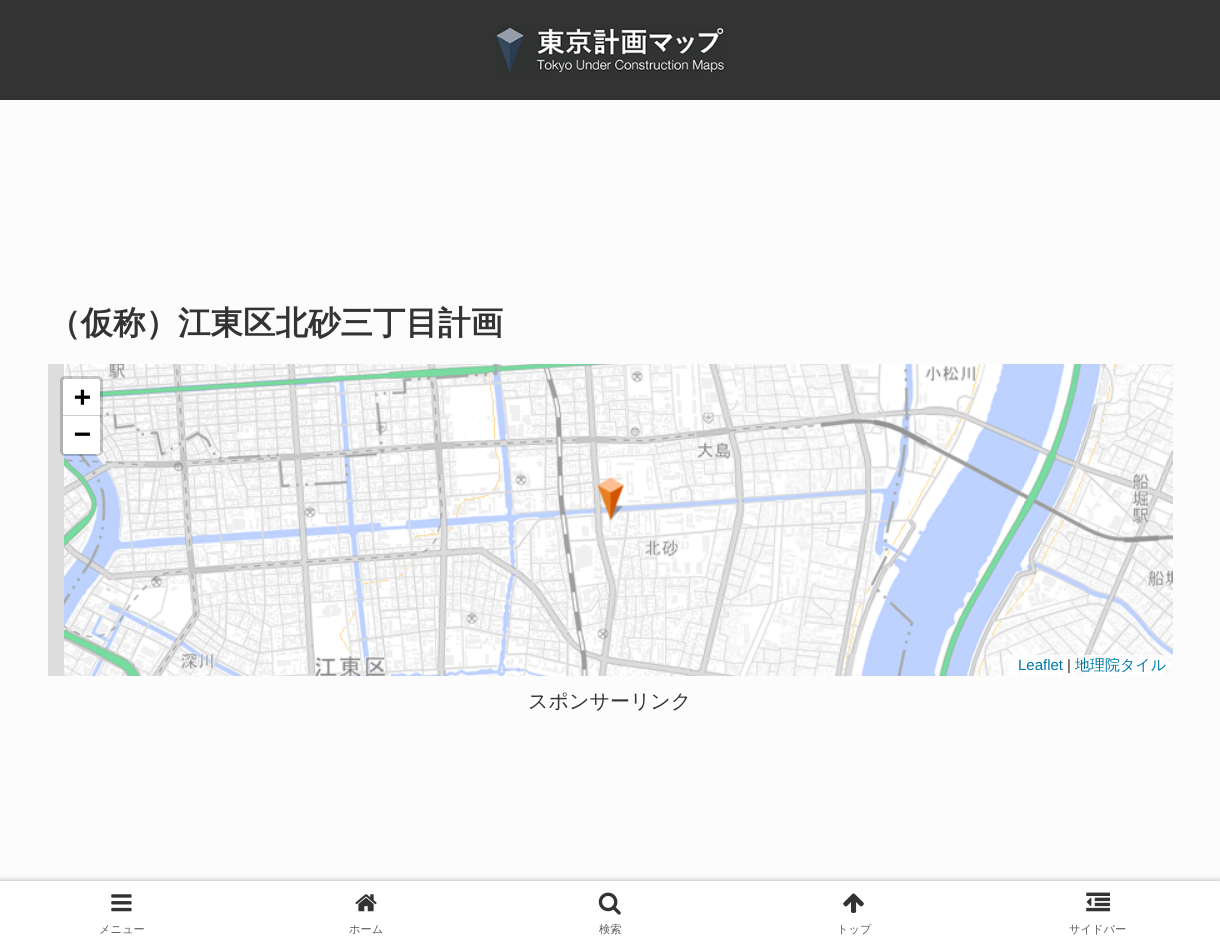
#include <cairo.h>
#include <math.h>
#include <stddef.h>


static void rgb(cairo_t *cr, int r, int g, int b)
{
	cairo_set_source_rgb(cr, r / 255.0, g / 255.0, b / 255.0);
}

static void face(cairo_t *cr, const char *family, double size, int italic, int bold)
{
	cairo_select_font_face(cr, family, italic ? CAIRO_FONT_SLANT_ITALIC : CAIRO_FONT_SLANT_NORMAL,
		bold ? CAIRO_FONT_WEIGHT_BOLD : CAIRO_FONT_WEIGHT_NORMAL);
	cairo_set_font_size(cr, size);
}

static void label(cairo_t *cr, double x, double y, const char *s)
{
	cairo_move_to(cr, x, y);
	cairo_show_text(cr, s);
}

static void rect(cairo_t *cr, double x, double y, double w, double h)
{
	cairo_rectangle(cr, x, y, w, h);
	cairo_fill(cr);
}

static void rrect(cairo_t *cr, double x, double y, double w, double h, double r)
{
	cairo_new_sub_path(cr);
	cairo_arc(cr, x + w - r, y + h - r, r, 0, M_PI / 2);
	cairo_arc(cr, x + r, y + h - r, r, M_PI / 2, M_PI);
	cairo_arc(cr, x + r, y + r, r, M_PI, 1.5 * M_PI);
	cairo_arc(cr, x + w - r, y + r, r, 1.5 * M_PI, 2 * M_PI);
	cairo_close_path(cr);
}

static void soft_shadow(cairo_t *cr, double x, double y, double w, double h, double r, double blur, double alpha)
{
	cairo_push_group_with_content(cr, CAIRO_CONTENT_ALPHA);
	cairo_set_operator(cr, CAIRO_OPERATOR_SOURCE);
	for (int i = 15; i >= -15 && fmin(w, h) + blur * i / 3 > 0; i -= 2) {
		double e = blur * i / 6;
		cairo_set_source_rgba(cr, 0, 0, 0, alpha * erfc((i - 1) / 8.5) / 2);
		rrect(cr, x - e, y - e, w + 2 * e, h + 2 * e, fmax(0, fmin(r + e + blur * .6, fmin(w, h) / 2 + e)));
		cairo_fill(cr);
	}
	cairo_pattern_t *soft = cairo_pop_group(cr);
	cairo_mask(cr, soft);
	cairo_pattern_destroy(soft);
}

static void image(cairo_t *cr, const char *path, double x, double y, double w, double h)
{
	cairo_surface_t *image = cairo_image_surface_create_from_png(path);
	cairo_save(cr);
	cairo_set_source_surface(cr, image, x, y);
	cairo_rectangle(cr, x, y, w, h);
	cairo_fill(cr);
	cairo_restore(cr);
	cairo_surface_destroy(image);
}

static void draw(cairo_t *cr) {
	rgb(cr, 252, 252, 252);
	cairo_paint(cr);
	rgb(cr, 51, 51, 51);
	rect(cr, 0, 0, 1220, 100);
	image(cr, "image0.png", 495, 26, 230, 48);
	face(cr, "WenQuanYi Zen Hei", 32.5, 0, 1);
	label(cr, 48, 334, "（仮称）江東区北砂三丁目計画");
	rgb(cr, 221, 221, 221);
	rect(cr, 48, 364, 16, 312);
	image(cr, "image1.png", 64, 364, 320, 10);
	image(cr, "image2.png", 384, 364, 320, 10);
	image(cr, "image3.png", 704, 364, 320, 10);
	image(cr, "image4.png", 1024, 364, 149, 10);
	image(cr, "image5.png", 64, 373, 320, 303);
	image(cr, "image6.png", 384, 373, 320, 303);
	image(cr, "image7.png", 704, 373, 320, 303);
	image(cr, "image8.png", 1024, 373, 149, 303);
	image(cr, "image10.png", 609, 505, 14, 15);
	image(cr, "image9.png", 597, 477, 28, 44);
	rrect(cr, 61.5, 377.5, 40, 77, 3.5);
	cairo_set_source_rgba(cr, 0, 0, 0, 0.2);
	cairo_set_line_width(cr, 3);
	cairo_stroke(cr);
	rgb(cr, 255, 255, 255);
	cairo_new_path(cr);
	cairo_move_to(cr, 65.5, 379);
	cairo_line_to(cr, 97.5, 379);
	cairo_curve_to(cr, 99, 379, 100, 380, 100, 381.5);
	cairo_line_to(cr, 100, 416);
	cairo_line_to(cr, 63, 416);
	cairo_line_to(cr, 63, 381.5);
	cairo_curve_to(cr, 63, 380, 64, 379, 65.5, 379);
	cairo_close_path(cr);
	cairo_fill(cr);
	rgb(cr, 204, 204, 204);
	rect(cr, 63, 415, 37, 1);
	face(cr, "DejaVu Sans Mono", 28, 0, 1);
	rgb(cr, 0, 0, 0);
	label(cr, 74, 406, "+");
	rgb(cr, 255, 255, 255);
	cairo_new_path(cr);
	cairo_move_to(cr, 63, 416);
	cairo_line_to(cr, 100, 416);
	cairo_line_to(cr, 100, 451.5);
	cairo_curve_to(cr, 100, 453, 99, 454, 97.5, 454);
	cairo_line_to(cr, 65.5, 454);
	cairo_curve_to(cr, 64, 454, 63, 453, 63, 451.5);
	cairo_close_path(cr);
	cairo_fill(cr);
	rgb(cr, 0, 0, 0);
	label(cr, 74, 443, "−");
	cairo_set_source_rgba(cr, 1, 1, 1, 0.8);
	rect(cr, 1008, 655, 165, 21);
	face(cr, "Liberation Sans", 15, 0, 0);
	rgb(cr, 0, 120, 168);
	label(cr, 1018, 670, "Leaflet");
	rgb(cr, 51, 51, 51);
	label(cr, 1067, 670, "|");
	face(cr, "WenQuanYi Zen Hei Medium", 15, 0, 0);
	rgb(cr, 0, 120, 168);
	label(cr, 1075, 670, "地理院タイル");
	face(cr, "WenQuanYi Zen Hei Medium", 20, 0, 0);
	rgb(cr, 51, 51, 51);
	label(cr, 528, 708, "スポンサーリンク");
	rgb(cr, 169, 169, 169);
	soft_shadow(cr, 0, 881, 1220, 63, 0, 3, 1);
	rgb(cr, 255, 255, 255);
	rect(cr, 0, 881, 1220, 62);
	image(cr, "image11.png", 111, 894, 21, 18);
	face(cr, "WenQuanYi Zen Hei Medium", 11.25, 0, 0);
	rgb(cr, 92, 92, 92);
	label(cr, 99, 933, "メニュー");
	image(cr, "image12.png", 355, 894, 22, 18);
	label(cr, 349, 933, "ホーム");
	image(cr, "image13.png", 598, 892, 23, 23);
	label(cr, 599, 933, "検索");
	image(cr, "image14.png", 843, 893, 21, 20);
	label(cr, 837, 933, "トップ");
	image(cr, "image15.png", 1086, 892, 24, 20);
	label(cr, 1069, 933, "サイドバー");
}

int main(void) {
	cairo_surface_t *surface = cairo_image_surface_create(CAIRO_FORMAT_RGB24, 1220, 943);
	cairo_t *cr = cairo_create(surface);
	cairo_font_options_t *options = cairo_font_options_create();
	cairo_font_options_set_hint_metrics(options, CAIRO_HINT_METRICS_OFF);
	cairo_font_options_set_hint_style(options, CAIRO_HINT_STYLE_NONE);
	cairo_set_font_options(cr, options);
	cairo_set_miter_limit(cr, 4);
	draw(cr);
	cairo_surface_write_to_png(surface, "render.png");
	cairo_font_options_destroy(options);
	cairo_destroy(cr);
	cairo_surface_destroy(surface);
	return 0;
}
